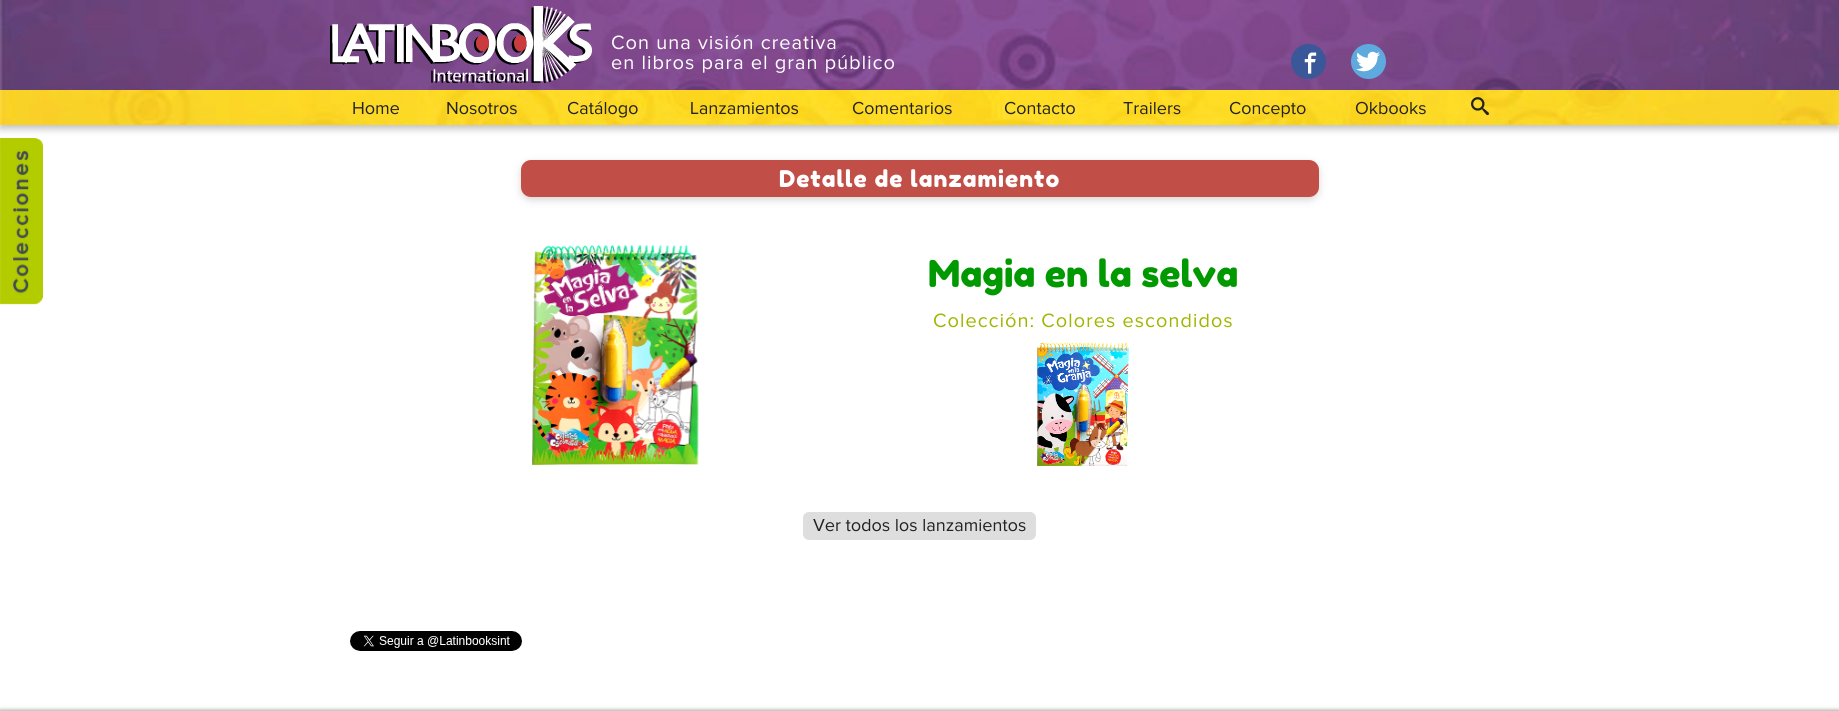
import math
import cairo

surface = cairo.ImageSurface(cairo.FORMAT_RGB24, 1839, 711)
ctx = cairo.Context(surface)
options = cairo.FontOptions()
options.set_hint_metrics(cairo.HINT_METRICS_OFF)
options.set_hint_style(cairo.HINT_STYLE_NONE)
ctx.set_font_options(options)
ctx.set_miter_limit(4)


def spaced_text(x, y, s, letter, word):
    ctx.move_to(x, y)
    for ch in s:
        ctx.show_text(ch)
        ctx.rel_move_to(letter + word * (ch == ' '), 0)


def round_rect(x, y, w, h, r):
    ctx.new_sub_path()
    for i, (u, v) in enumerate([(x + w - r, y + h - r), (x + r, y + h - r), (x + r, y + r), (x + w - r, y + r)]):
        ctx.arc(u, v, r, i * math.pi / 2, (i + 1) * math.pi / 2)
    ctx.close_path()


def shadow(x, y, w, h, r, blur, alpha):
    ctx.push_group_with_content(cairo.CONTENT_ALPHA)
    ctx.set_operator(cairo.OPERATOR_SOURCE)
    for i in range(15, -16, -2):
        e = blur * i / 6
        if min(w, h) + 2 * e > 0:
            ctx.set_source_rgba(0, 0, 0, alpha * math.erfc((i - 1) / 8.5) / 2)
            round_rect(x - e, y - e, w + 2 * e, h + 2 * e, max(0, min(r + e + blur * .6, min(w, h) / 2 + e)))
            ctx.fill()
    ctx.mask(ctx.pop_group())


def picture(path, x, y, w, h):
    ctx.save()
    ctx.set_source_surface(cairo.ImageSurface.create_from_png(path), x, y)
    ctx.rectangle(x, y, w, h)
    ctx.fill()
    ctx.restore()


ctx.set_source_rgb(1, 1, 1)
ctx.paint()
ctx.set_source_rgb(0.196, 0.196, 0.196)
shadow(0, 94, 1839, 35, 0, 3.5, 0.3)
picture("img1.png", 0, 0, 1839, 90)
picture("img2.png", 330, 6, 262, 77)
picture("img3.png", 612, 35, 224, 15)
picture("img4.png", 611, 55, 283, 18)
ctx.set_source_rgb(0.227, 0.341, 0.6)
ctx.arc(1308.5, 61.5, 17.5, 0, 2 * math.pi)
ctx.fill()
picture("img5.png", 1304, 52, 13, 22)
ctx.set_source_rgb(0.369, 0.663, 0.867)
ctx.arc(1368.5, 61.5, 17.5, 0, 2 * math.pi)
ctx.fill()
picture("img6.png", 1356, 51, 24, 21)
picture("img7.png", 0, 90, 1839, 35)
picture("img8.png", 353, 102, 46, 13)
picture("img9.png", 447, 102, 70, 13)
picture("img10.png", 567, 101, 71, 17)
picture("img11.png", 691, 102, 108, 13)
picture("img12.png", 852, 101, 100, 14)
picture("img13.png", 1004, 101, 71, 14)
picture("img14.png", 1123, 102, 58, 13)
picture("img15.png", 1229, 101, 77, 17)
picture("img16.png", 1355, 101, 71, 14)
picture("img17.png", 1471, 97, 18, 19)
picture("img18.png", 0, 138, 43, 167)
ctx.set_source_rgb(0.196, 0.196, 0.196)
shadow(521, 163, 798, 37, 10, 4, 0.2)
ctx.set_source_rgb(0.761, 0.306, 0.282)
round_rect(521, 160, 798, 37, 10)
ctx.fill()
ctx.select_font_face("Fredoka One")
ctx.set_font_size(23)
ctx.set_source_rgb(1, 1, 1)
spaced_text(779, 187, "Detalle de lanzamiento", 1, 0)
picture("img19.png", 532, 245, 167, 220)
ctx.set_font_size(37)
ctx.set_source_rgb(0, 0.6, 0)
ctx.move_to(928, 287)
ctx.show_text("Magia en la selva")
picture("img20.png", 934, 313, 298, 15)
picture("img21.png", 1037, 342, 92, 124)
ctx.set_source_rgb(0.871, 0.871, 0.871)
round_rect(803, 512, 233, 28, 6)
ctx.fill()
picture("img22.png", 813, 519, 213, 13)
picture("img23.png", 350, 631, 172, 20)
ctx.set_source_rgb(0.196, 0.196, 0.196)
shadow(0, 710, 1839, 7, 0, 2, 0.45)
surface.write_to_png("page.png")
